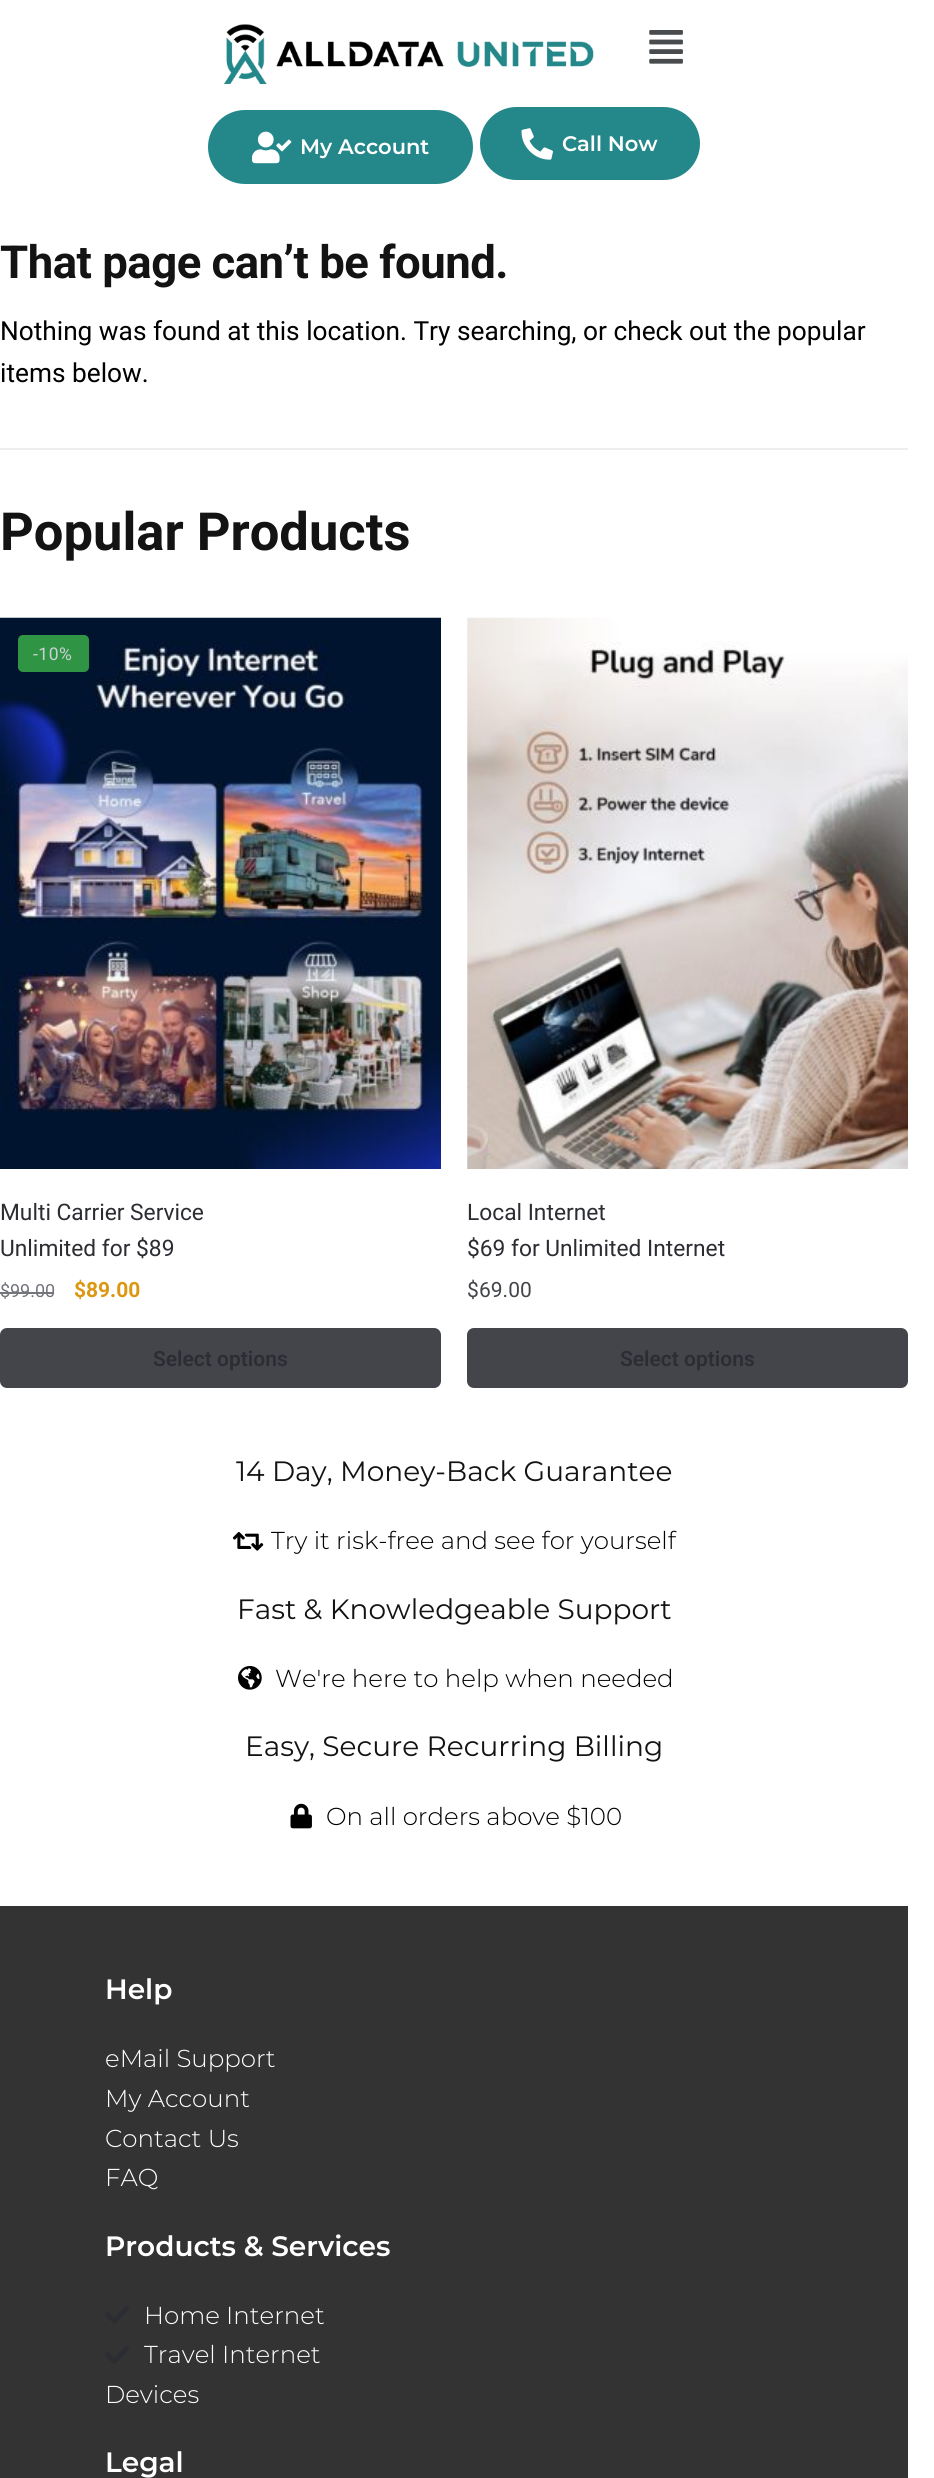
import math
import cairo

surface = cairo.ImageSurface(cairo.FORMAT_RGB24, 934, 2478)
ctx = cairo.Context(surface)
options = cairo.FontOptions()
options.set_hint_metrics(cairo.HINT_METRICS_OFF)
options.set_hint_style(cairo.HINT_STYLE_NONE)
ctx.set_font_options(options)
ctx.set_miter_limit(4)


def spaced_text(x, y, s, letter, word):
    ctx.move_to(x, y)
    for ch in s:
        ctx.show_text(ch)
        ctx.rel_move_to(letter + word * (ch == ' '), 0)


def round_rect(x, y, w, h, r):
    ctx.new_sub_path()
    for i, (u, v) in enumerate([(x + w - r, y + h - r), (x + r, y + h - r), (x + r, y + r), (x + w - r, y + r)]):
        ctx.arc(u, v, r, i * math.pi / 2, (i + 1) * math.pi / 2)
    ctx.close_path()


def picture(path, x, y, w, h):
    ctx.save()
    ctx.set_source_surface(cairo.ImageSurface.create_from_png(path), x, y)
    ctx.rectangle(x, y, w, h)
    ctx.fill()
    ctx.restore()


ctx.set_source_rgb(1, 1, 1)
ctx.paint()
picture("img1.png", 224, 24, 370, 60)
picture("img2.png", 649, 30, 34, 34)
ctx.set_source_rgb(0.141, 0.529, 0.537)
round_rect(208, 110, 265, 74, 37)
ctx.fill()
picture("img3.png", 252, 131, 40, 33)
ctx.select_font_face("Montserrat SemiBold")
ctx.set_font_size(21)
ctx.set_source_rgb(1, 1, 1)
ctx.move_to(300, 154)
ctx.show_text("My Account")
ctx.set_source_rgb(0.141, 0.529, 0.537)
round_rect(480, 107, 220, 73, 36.5)
ctx.fill()
picture("img4.png", 521, 128, 32, 32)
ctx.set_source_rgb(1, 1, 1)
ctx.move_to(562, 151)
ctx.show_text("Call Now")
ctx.select_font_face("Roboto", cairo.FONT_SLANT_NORMAL, cairo.FONT_WEIGHT_BOLD)
ctx.set_font_size(45.5)
ctx.set_source_rgb(0.075, 0.075, 0.082)
spaced_text(0, 278, "That page can’t be found.", -0.5, 0)
ctx.select_font_face("Roboto")
ctx.set_font_size(26.25)
ctx.set_source_rgb(0, 0, 0)
ctx.move_to(0, 340)
ctx.show_text("Nothing was found at this location. Try searching, or check out the popular")
ctx.move_to(0, 382)
ctx.show_text("items below.")
ctx.set_source_rgb(0.933, 0.933, 0.933)
ctx.rectangle(0, 448, 908, 2)
ctx.fill()
ctx.select_font_face("Roboto", cairo.FONT_SLANT_NORMAL, cairo.FONT_WEIGHT_BOLD)
ctx.set_font_size(52.5)
ctx.set_source_rgb(0.075, 0.075, 0.082)
ctx.move_to(0, 550)
ctx.show_text("Popular Products")
picture("img5.png", 0, 617, 441, 552)
ctx.set_source_rgb(0.184, 0.584, 0.271)
round_rect(18, 635, 71, 37, 5)
ctx.fill()
ctx.select_font_face("Roboto")
ctx.set_font_size(17.5)
ctx.set_source_rgb(0.8, 0.816, 0.835)
spaced_text(33, 660, "-10%", 0.5, 0)
ctx.set_font_size(22.75)
ctx.set_source_rgb(0.173, 0.176, 0.2)
ctx.move_to(0, 1220)
ctx.show_text("Multi Carrier Service")
ctx.move_to(0, 1256)
ctx.show_text("Unlimited for $89")
ctx.set_font_size(18)
ctx.set_source_rgb(0.447, 0.463, 0.486)
ctx.move_to(0, 1297)
ctx.show_text("$")
ctx.move_to(10, 1297)
ctx.show_text("99.00")
ctx.rectangle(11, 1292, 43, 2)
ctx.fill()
ctx.rectangle(0, 1292, 11, 2)
ctx.fill()
ctx.select_font_face("Roboto", cairo.FONT_SLANT_NORMAL, cairo.FONT_WEIGHT_BOLD)
ctx.set_font_size(21)
ctx.set_source_rgb(0.863, 0.596, 0.078)
ctx.move_to(74, 1297)
ctx.show_text("$")
ctx.move_to(86, 1297)
ctx.show_text("89.00")
ctx.set_source_rgb(0.263, 0.271, 0.294)
round_rect(0, 1328, 441, 60, 7)
ctx.fill()
ctx.select_font_face("Roboto SemiBold")
ctx.set_source_rgb(0.173, 0.176, 0.2)
ctx.move_to(153, 1366)
ctx.show_text("Select options")
picture("img6.png", 467, 617, 441, 552)
ctx.select_font_face("Roboto")
ctx.set_font_size(22.75)
ctx.move_to(467, 1220)
ctx.show_text("Local Internet")
ctx.move_to(467, 1256)
ctx.show_text("$69 for Unlimited Internet")
ctx.set_font_size(21)
ctx.set_source_rgb(0.263, 0.271, 0.294)
ctx.move_to(467, 1297)
ctx.show_text("$")
ctx.move_to(479, 1297)
ctx.show_text("69.00")
round_rect(467, 1328, 441, 60, 7)
ctx.fill()
ctx.select_font_face("Roboto SemiBold")
ctx.set_source_rgb(0.173, 0.176, 0.2)
ctx.move_to(620, 1366)
ctx.show_text("Select options")
ctx.select_font_face("Montserrat")
ctx.set_font_size(28)
ctx.set_source_rgb(0.075, 0.075, 0.082)
ctx.move_to(236, 1481)
ctx.show_text("14 Day, Money-Back Guarantee")
picture("img7.png", 232, 1532, 32, 19)
ctx.select_font_face("Montserrat Light")
ctx.set_font_size(24.5)
ctx.set_source_rgb(0, 0, 0)
ctx.move_to(271, 1549)
ctx.show_text("Try it risk-free and see for yourself")
ctx.select_font_face("Montserrat")
ctx.set_font_size(28)
ctx.set_source_rgb(0.075, 0.075, 0.082)
ctx.move_to(237, 1619)
ctx.show_text("Fast & Knowledgeable Support")
picture("img8.png", 238, 1665, 24, 25)
ctx.select_font_face("Montserrat Light")
ctx.set_font_size(24.5)
ctx.set_source_rgb(0, 0, 0)
ctx.move_to(275, 1687)
ctx.show_text("We're here to help when needed")
ctx.select_font_face("Montserrat")
ctx.set_font_size(28)
ctx.set_source_rgb(0.075, 0.075, 0.082)
ctx.move_to(245, 1756)
ctx.show_text("Easy, Secure Recurring Billing")
picture("img9.png", 290, 1803, 22, 26)
ctx.select_font_face("Montserrat Light")
ctx.set_font_size(24.5)
ctx.set_source_rgb(0, 0, 0)
ctx.move_to(326, 1825)
ctx.show_text("On all orders above $100")
ctx.set_source_rgb(0.2, 0.2, 0.2)
ctx.rectangle(0, 1906, 908, 572)
ctx.fill()
ctx.select_font_face("Montserrat SemiBold")
ctx.set_font_size(28)
ctx.set_source_rgb(1, 1, 1)
ctx.move_to(105, 1999)
ctx.show_text("Help")
ctx.select_font_face("Montserrat Light")
ctx.set_font_size(24.5)
ctx.move_to(105, 2067)
ctx.show_text("eMail Support")
ctx.move_to(105, 2107)
ctx.show_text("My Account")
ctx.move_to(105, 2147)
ctx.show_text("Contact Us")
ctx.move_to(105, 2186)
ctx.show_text("FAQ")
ctx.select_font_face("Montserrat SemiBold")
ctx.set_font_size(28)
ctx.move_to(105, 2256)
ctx.show_text("Products & Services")
picture("img10.png", 105, 2306, 24, 18)
ctx.select_font_face("Montserrat Light")
ctx.set_font_size(24.5)
ctx.move_to(144, 2324)
ctx.show_text("Home Internet")
picture("img11.png", 105, 2346, 24, 18)
ctx.move_to(144, 2363)
ctx.show_text("Travel Internet")
ctx.move_to(105, 2403)
ctx.show_text("Devices")
ctx.select_font_face("Montserrat SemiBold")
ctx.set_font_size(28)
ctx.move_to(105, 2472)
ctx.show_text("Legal")
surface.write_to_png("page.png")
